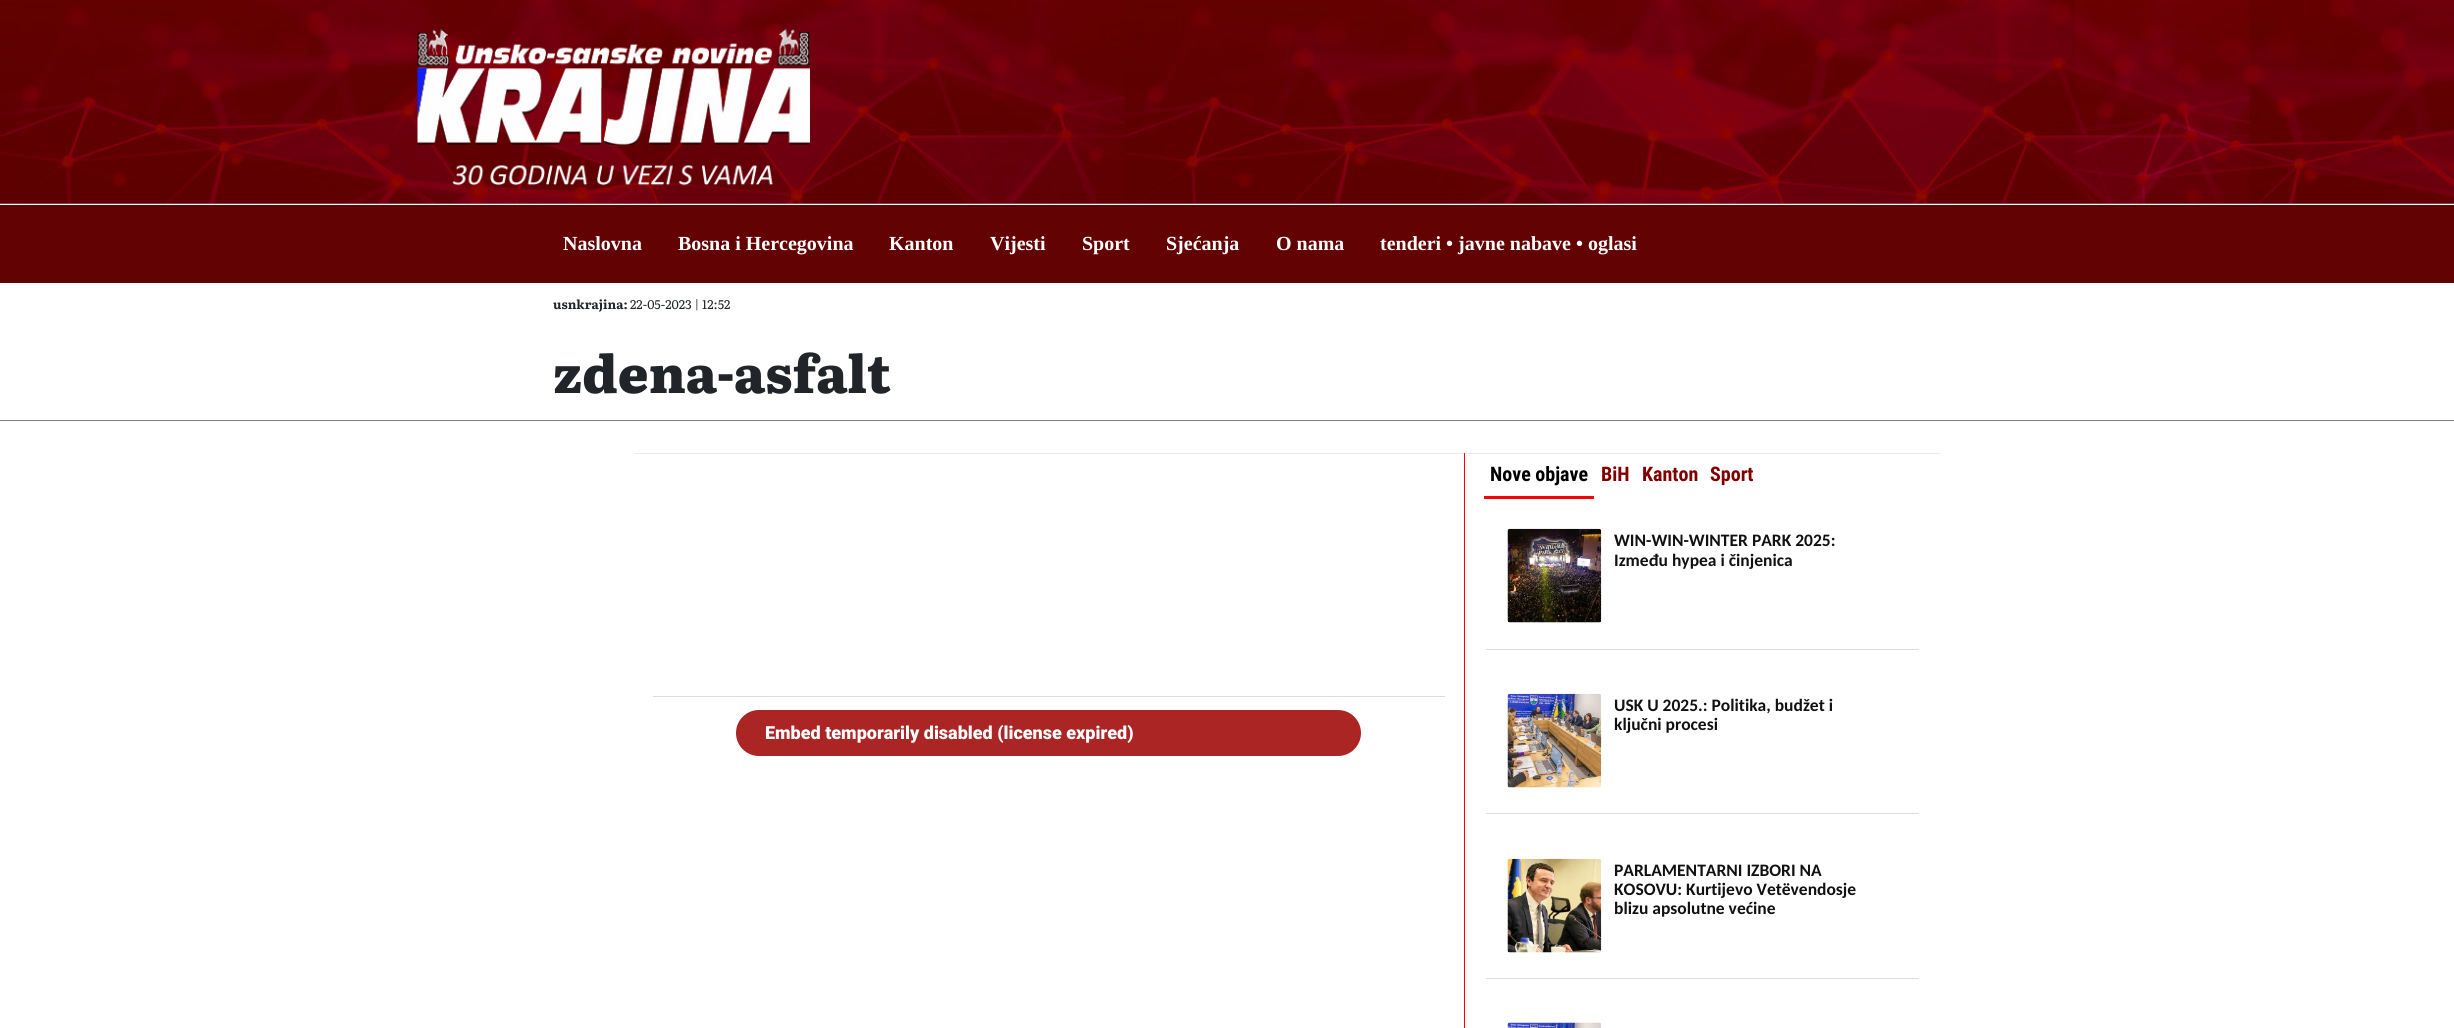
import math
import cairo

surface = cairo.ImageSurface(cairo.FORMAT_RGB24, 2454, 1028)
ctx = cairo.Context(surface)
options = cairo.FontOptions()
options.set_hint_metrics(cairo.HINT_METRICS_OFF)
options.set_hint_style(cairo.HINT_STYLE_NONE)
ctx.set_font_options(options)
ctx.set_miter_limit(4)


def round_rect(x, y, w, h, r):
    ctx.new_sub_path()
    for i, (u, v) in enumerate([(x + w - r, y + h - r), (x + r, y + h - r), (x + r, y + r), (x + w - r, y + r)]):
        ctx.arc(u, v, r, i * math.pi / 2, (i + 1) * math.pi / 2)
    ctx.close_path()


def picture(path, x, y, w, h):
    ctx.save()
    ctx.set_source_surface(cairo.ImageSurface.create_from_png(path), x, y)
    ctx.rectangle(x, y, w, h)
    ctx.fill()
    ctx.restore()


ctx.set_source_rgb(1, 1, 1)
ctx.paint()
picture("img1.png", 0, 0, 2454, 204)
picture("img2.png", 417, 28, 393, 158)
ctx.set_source_rgb(0.388, 0.008, 0.008)
ctx.rectangle(0, 205, 2454, 78)
ctx.fill()
ctx.set_source_rgb(0.361, 0, 0)
ctx.rectangle(0, 281, 2454, 1)
ctx.fill()
ctx.select_font_face("Liberation Serif", cairo.FONT_SLANT_NORMAL, cairo.FONT_WEIGHT_BOLD)
ctx.set_font_size(20)
ctx.set_source_rgb(1, 1, 1)
ctx.move_to(563, 250)
ctx.show_text("Naslovna")
ctx.move_to(678, 250)
ctx.show_text("Bosna i Hercegovina")
ctx.move_to(889, 250)
ctx.show_text("Kanton")
ctx.move_to(990, 250)
ctx.show_text("Vijesti")
ctx.move_to(1082, 250)
ctx.show_text("Sport")
ctx.move_to(1166, 250)
ctx.show_text("Sjećanja")
ctx.move_to(1276, 250)
ctx.show_text("O nama")
ctx.move_to(1380, 250)
ctx.show_text("tenderi • javne nabave • oglasi")
ctx.set_source_rgb(0.502, 0.502, 0.502)
ctx.rectangle(0, 420, 2454, 1)
ctx.fill()
ctx.select_font_face("Literata", cairo.FONT_SLANT_NORMAL, cairo.FONT_WEIGHT_BOLD)
ctx.set_font_size(12.5)
ctx.set_source_rgb(0.129, 0.145, 0.161)
ctx.move_to(553, 309)
ctx.show_text("usnkrajina:")
ctx.select_font_face("Literata")
ctx.move_to(630, 309)
ctx.show_text("22-05-2023 | 12:52")
ctx.select_font_face("Literata ExtraBold")
ctx.set_font_size(52)
ctx.move_to(553, 393)
ctx.show_text("zdena-asfalt")
ctx.set_source_rgb(0.925, 0.918, 0.918)
ctx.rectangle(634, 453, 1306, 1)
ctx.fill()
ctx.set_source_rgb(1, 0, 0)
ctx.rectangle(1464, 453, 1, 575)
ctx.fill()
ctx.set_source_rgb(0.867, 0.867, 0.867)
ctx.rectangle(653, 696, 792, 1)
ctx.fill()
ctx.set_source_rgb(0.671, 0.145, 0.145)
round_rect(736, 710, 625, 46, 23)
ctx.fill()
ctx.select_font_face("Roboto Black")
ctx.set_font_size(18)
ctx.set_source_rgb(1, 1, 1)
ctx.move_to(765, 739)
ctx.show_text("Embed temporarily disabled (license expired)")
ctx.set_source_rgb(1, 0, 0)
ctx.rectangle(1484, 496, 110, 3)
ctx.fill()
ctx.select_font_face("Roboto Condensed", cairo.FONT_SLANT_NORMAL, cairo.FONT_WEIGHT_BOLD)
ctx.set_font_size(20)
ctx.set_source_rgb(0, 0, 0)
ctx.move_to(1490, 481)
ctx.show_text("Nove objave")
ctx.set_source_rgb(0.502, 0, 0)
ctx.move_to(1601, 481)
ctx.show_text("BiH")
ctx.move_to(1642, 481)
ctx.show_text("Kanton")
ctx.move_to(1710, 481)
ctx.show_text("Sport")
ctx.set_source_rgb(0.867, 0.867, 0.867)
ctx.rectangle(1486, 649, 433, 1)
ctx.fill()
picture("img3.png", 1507, 528, 95, 95)
ctx.select_font_face("Carlito", cairo.FONT_SLANT_NORMAL, cairo.FONT_WEIGHT_BOLD)
ctx.set_font_size(17.5)
ctx.set_source_rgb(0.067, 0.067, 0.067)
ctx.move_to(1614, 546)
ctx.show_text("WIN-WIN-WINTER PARK 2025:")
ctx.move_to(1614, 566)
ctx.show_text("Između hypea i činjenica")
ctx.set_source_rgb(0.867, 0.867, 0.867)
ctx.rectangle(1486, 813, 433, 1)
ctx.fill()
picture("img4.png", 1507, 693, 95, 95)
ctx.set_source_rgb(0.067, 0.067, 0.067)
ctx.move_to(1614, 711)
ctx.show_text("USK U 2025.: Politika, budžet i")
ctx.move_to(1614, 730)
ctx.show_text("ključni procesi")
ctx.set_source_rgb(0.867, 0.867, 0.867)
ctx.rectangle(1486, 978, 433, 1)
ctx.fill()
picture("img5.png", 1507, 858, 95, 95)
ctx.set_source_rgb(0.067, 0.067, 0.067)
ctx.move_to(1614, 876)
ctx.show_text("PARLAMENTARNI IZBORI NA")
ctx.move_to(1614, 895)
ctx.show_text("KOSOVU: Kurtijevo Vetëvendosje")
ctx.move_to(1614, 914)
ctx.show_text("blizu apsolutne većine")
picture("img6.png", 1507, 1022, 94, 6)
surface.write_to_png("page.png")
